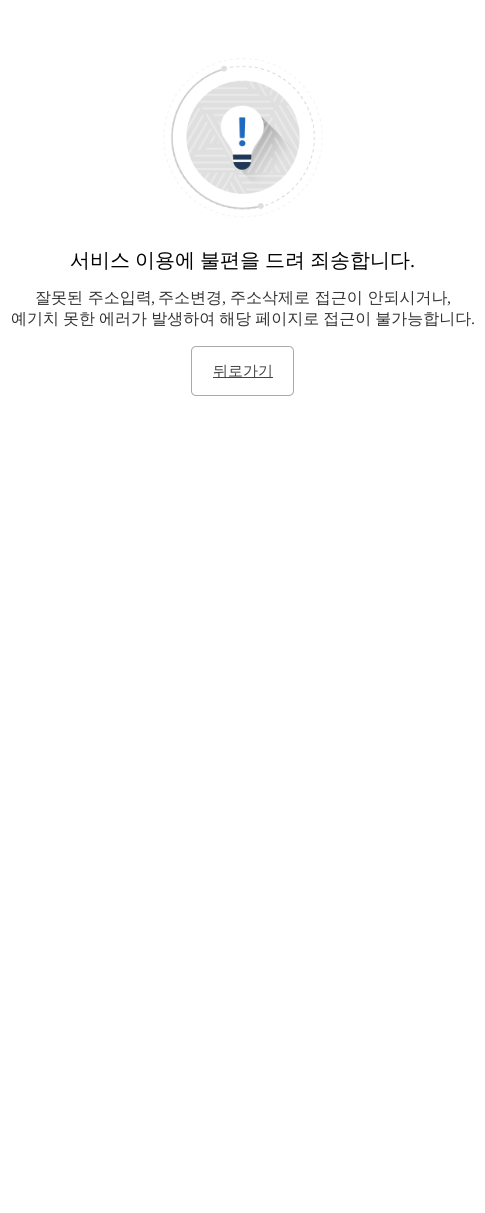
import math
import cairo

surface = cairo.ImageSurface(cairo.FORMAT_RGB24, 485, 1213)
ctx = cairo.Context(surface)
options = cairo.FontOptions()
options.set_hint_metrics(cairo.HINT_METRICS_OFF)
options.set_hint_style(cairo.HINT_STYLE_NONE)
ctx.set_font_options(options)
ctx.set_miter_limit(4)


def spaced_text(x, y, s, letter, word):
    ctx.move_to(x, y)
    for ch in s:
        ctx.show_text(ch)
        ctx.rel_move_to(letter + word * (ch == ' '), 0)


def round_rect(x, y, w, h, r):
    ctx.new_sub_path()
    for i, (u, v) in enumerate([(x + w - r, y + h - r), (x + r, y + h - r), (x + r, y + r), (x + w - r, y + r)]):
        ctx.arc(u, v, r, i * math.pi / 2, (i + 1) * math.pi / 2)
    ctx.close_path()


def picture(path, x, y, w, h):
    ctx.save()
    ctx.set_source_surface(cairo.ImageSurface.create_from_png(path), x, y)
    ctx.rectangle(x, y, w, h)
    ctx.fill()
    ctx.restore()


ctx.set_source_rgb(1, 1, 1)
ctx.paint()
picture("img1.png", 163, 58, 160, 160)
ctx.select_font_face("WenQuanYi Zen Hei Medium")
ctx.set_font_size(20)
ctx.set_source_rgb(0, 0, 0)
spaced_text(70, 267, "서비스 이용에 불편을 드려 죄송합니다", 0, -1)
ctx.select_font_face("Liberation Serif")
ctx.move_to(410, 267)
ctx.show_text(".")
ctx.select_font_face("WenQuanYi Zen Hei Medium")
ctx.set_font_size(16)
ctx.set_source_rgb(0.2, 0.2, 0.2)
ctx.move_to(35, 303)
ctx.show_text("잘못된 주소입력")
ctx.select_font_face("Liberation Serif")
ctx.move_to(151, 303)
ctx.show_text(",")
ctx.select_font_face("WenQuanYi Zen Hei Medium")
ctx.move_to(158, 303)
ctx.show_text("주소변경")
ctx.select_font_face("Liberation Serif")
ctx.move_to(222, 303)
ctx.show_text(",")
ctx.select_font_face("WenQuanYi Zen Hei Medium")
ctx.move_to(230, 303)
ctx.show_text("주소삭제로 접근이 안되시거나")
ctx.select_font_face("Liberation Serif")
ctx.move_to(447, 303)
ctx.show_text(",")
ctx.select_font_face("WenQuanYi Zen Hei Medium")
spaced_text(11, 324, "예기치 못한 에러가 발생하여 해당 페이지로 접근이 불가능합니다", 0, -0.75)
ctx.select_font_face("Liberation Serif")
ctx.move_to(471, 324)
ctx.show_text(".")
round_rect(191.5, 346.5, 102, 49, 4.5)
ctx.set_source_rgb(0.667, 0.667, 0.667)
ctx.set_line_width(1)
ctx.stroke()
ctx.set_source_rgb(0.267, 0.267, 0.267)
ctx.rectangle(213, 377, 60, 1)
ctx.fill()
ctx.select_font_face("WenQuanYi Zen Hei Medium")
ctx.set_font_size(15)
ctx.move_to(213, 376)
ctx.show_text("뒤로가기")
surface.write_to_png("page.png")
